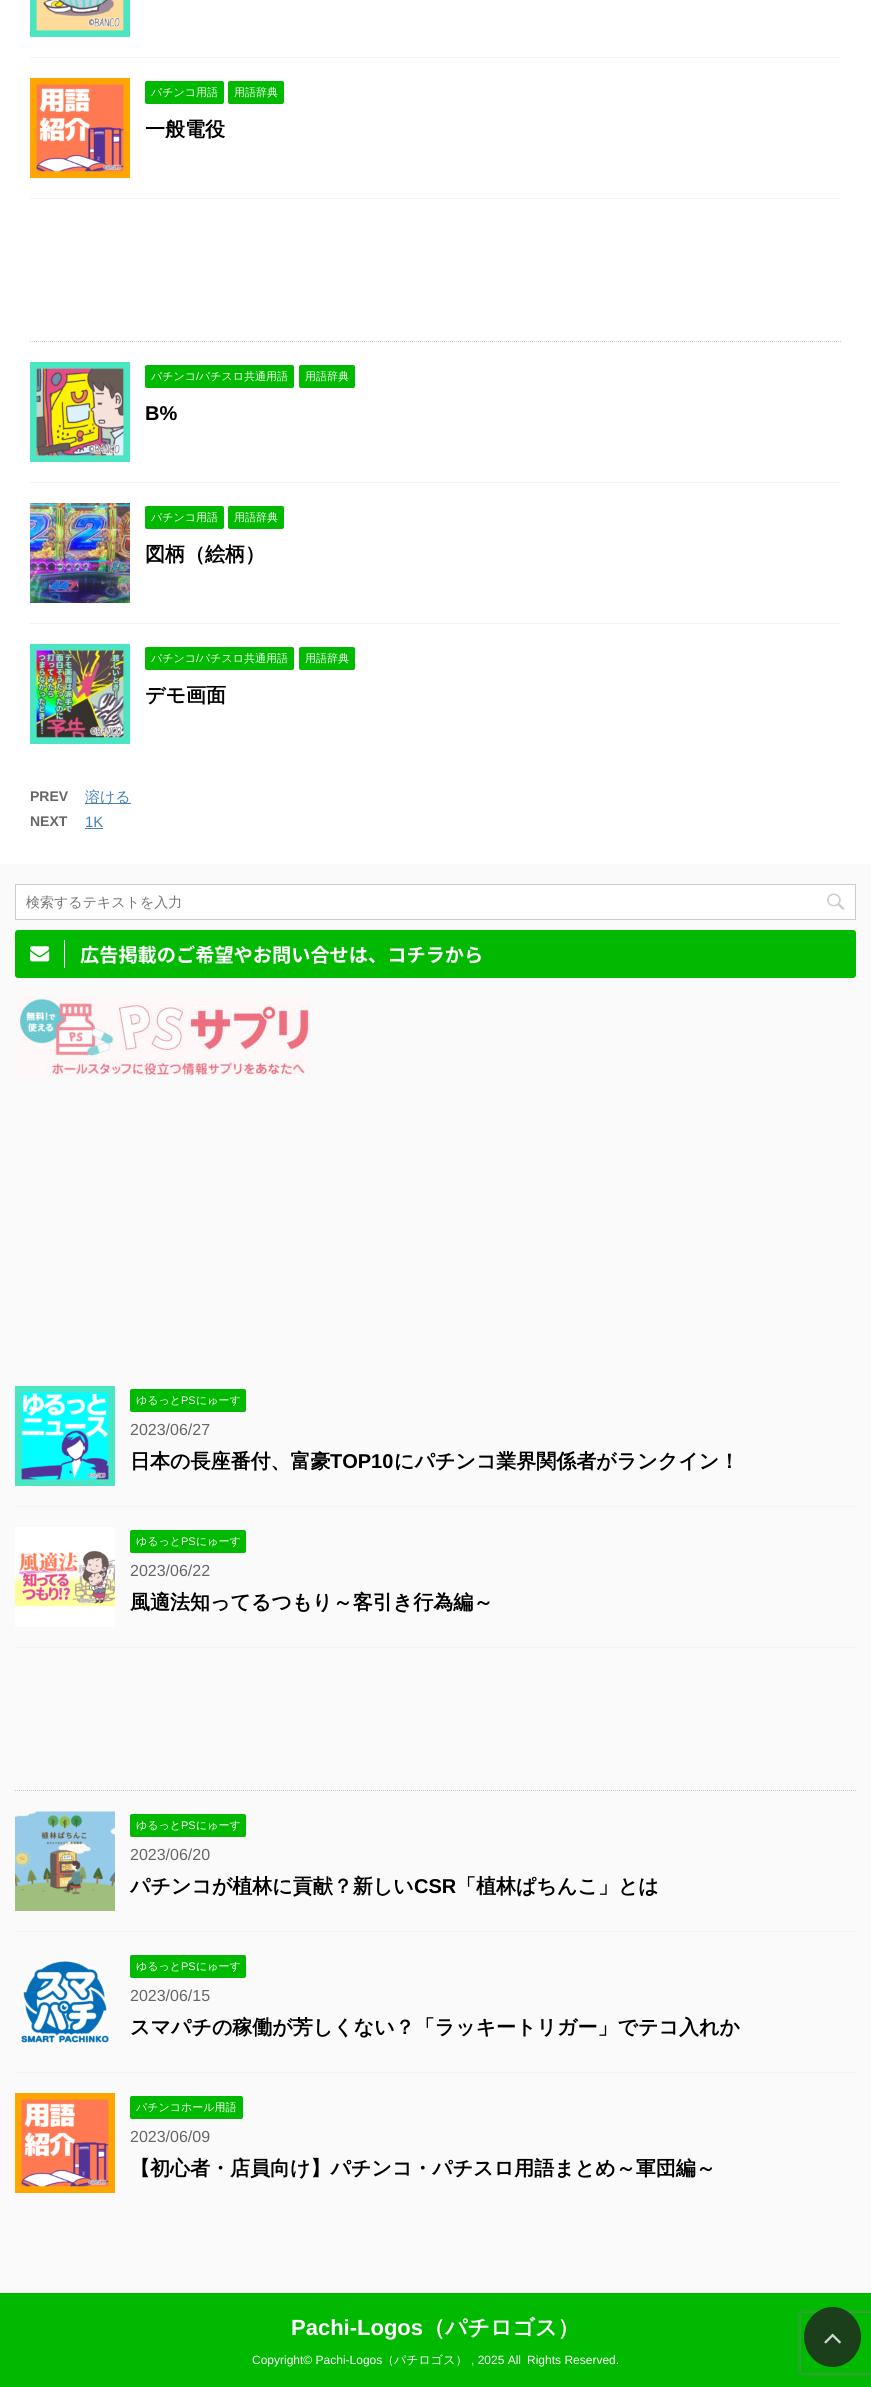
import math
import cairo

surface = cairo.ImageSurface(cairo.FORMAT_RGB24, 871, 2387)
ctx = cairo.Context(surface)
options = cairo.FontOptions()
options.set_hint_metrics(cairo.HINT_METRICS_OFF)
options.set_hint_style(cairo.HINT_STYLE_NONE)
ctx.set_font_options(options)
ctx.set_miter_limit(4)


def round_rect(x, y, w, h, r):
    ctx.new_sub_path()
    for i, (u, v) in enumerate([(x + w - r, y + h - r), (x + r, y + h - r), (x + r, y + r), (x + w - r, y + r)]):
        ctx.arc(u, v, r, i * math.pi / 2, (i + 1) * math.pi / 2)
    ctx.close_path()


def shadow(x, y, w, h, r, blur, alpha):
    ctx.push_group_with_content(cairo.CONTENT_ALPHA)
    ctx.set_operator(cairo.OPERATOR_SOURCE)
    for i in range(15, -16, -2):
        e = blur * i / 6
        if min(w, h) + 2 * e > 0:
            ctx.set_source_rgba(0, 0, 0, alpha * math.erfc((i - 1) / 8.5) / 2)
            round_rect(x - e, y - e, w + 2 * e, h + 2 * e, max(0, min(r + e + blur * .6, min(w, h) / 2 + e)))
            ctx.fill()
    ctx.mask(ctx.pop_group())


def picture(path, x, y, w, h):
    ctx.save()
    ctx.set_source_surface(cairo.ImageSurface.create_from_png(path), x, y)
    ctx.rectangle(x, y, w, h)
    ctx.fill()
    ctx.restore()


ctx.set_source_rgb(0.98, 0.98, 0.98)
ctx.paint()
ctx.set_source_rgb(1, 1, 1)
ctx.rectangle(0, 0, 871, 864)
ctx.fill()
ctx.set_source_rgb(0.953, 0.953, 0.953)
ctx.rectangle(30, 57, 811, 1)
ctx.fill()
picture("img1.png", 30, 0, 100, 37)
ctx.rectangle(30, 198, 811, 1)
ctx.fill()
picture("img2.png", 30, 78, 100, 100)
ctx.set_source_rgb(0, 0.725, 0)
round_rect(145, 81, 79, 23, 2)
ctx.fill()
ctx.select_font_face("WenQuanYi Zen Hei Medium")
ctx.set_font_size(11)
ctx.set_source_rgb(1, 1, 1)
ctx.move_to(151, 96)
ctx.show_text("パチンコ用語")
ctx.set_source_rgb(0, 0.725, 0)
round_rect(228, 81, 56, 23, 2)
ctx.fill()
ctx.set_source_rgb(1, 1, 1)
ctx.move_to(234, 96)
ctx.show_text("用語辞典")
ctx.select_font_face("WenQuanYi Zen Hei", cairo.FONT_SLANT_NORMAL, cairo.FONT_WEIGHT_BOLD)
ctx.set_font_size(20)
ctx.set_source_rgb(0, 0, 0)
ctx.move_to(145, 136)
ctx.show_text("一般電役")
ctx.new_path()
ctx.move_to(30, 341.5)
ctx.line_to(841, 341.5)
ctx.set_source_rgb(0.8, 0.8, 0.8)
ctx.set_line_width(1)
ctx.set_dash([1, 1])
ctx.stroke()
ctx.set_source_rgb(0.953, 0.953, 0.953)
ctx.rectangle(30, 482, 811, 1)
ctx.fill()
picture("img3.png", 30, 362, 100, 100)
ctx.set_source_rgb(0, 0.725, 0)
round_rect(145, 365, 149, 23, 2)
ctx.fill()
ctx.select_font_face("WenQuanYi Zen Hei Medium")
ctx.set_font_size(11)
ctx.set_source_rgb(1, 1, 1)
ctx.move_to(151, 380)
ctx.show_text("パチンコ")
ctx.select_font_face("Liberation Sans")
ctx.move_to(196, 380)
ctx.show_text("/")
ctx.select_font_face("WenQuanYi Zen Hei Medium")
ctx.move_to(199, 380)
ctx.show_text("パチスロ共通用語")
ctx.set_source_rgb(0, 0.725, 0)
round_rect(299, 365, 56, 23, 2)
ctx.fill()
ctx.set_source_rgb(1, 1, 1)
ctx.move_to(305, 380)
ctx.show_text("用語辞典")
ctx.select_font_face("Liberation Sans", cairo.FONT_SLANT_NORMAL, cairo.FONT_WEIGHT_BOLD)
ctx.set_font_size(20)
ctx.set_source_rgb(0, 0, 0)
ctx.move_to(145, 420)
ctx.show_text("B%")
ctx.set_source_rgb(0.953, 0.953, 0.953)
ctx.rectangle(30, 623, 811, 1)
ctx.fill()
picture("img4.png", 30, 503, 100, 100)
ctx.set_source_rgb(0, 0.725, 0)
round_rect(145, 506, 79, 23, 2)
ctx.fill()
ctx.select_font_face("WenQuanYi Zen Hei Medium")
ctx.set_font_size(11)
ctx.set_source_rgb(1, 1, 1)
ctx.move_to(151, 521)
ctx.show_text("パチンコ用語")
ctx.set_source_rgb(0, 0.725, 0)
round_rect(228, 506, 56, 23, 2)
ctx.fill()
ctx.set_source_rgb(1, 1, 1)
ctx.move_to(234, 521)
ctx.show_text("用語辞典")
ctx.select_font_face("WenQuanYi Zen Hei", cairo.FONT_SLANT_NORMAL, cairo.FONT_WEIGHT_BOLD)
ctx.set_font_size(20)
ctx.set_source_rgb(0, 0, 0)
ctx.move_to(145, 561)
ctx.show_text("図柄（絵柄）")
picture("img5.png", 30, 644, 100, 100)
ctx.set_source_rgb(0, 0.725, 0)
round_rect(145, 647, 149, 23, 2)
ctx.fill()
ctx.select_font_face("WenQuanYi Zen Hei Medium")
ctx.set_font_size(11)
ctx.set_source_rgb(1, 1, 1)
ctx.move_to(151, 662)
ctx.show_text("パチンコ")
ctx.select_font_face("Liberation Sans")
ctx.move_to(196, 662)
ctx.show_text("/")
ctx.select_font_face("WenQuanYi Zen Hei Medium")
ctx.move_to(199, 662)
ctx.show_text("パチスロ共通用語")
ctx.set_source_rgb(0, 0.725, 0)
round_rect(299, 647, 56, 23, 2)
ctx.fill()
ctx.set_source_rgb(1, 1, 1)
ctx.move_to(305, 662)
ctx.show_text("用語辞典")
ctx.select_font_face("WenQuanYi Zen Hei", cairo.FONT_SLANT_NORMAL, cairo.FONT_WEIGHT_BOLD)
ctx.set_font_size(20)
ctx.set_source_rgb(0, 0, 0)
ctx.move_to(145, 702)
ctx.show_text("デモ画面")
ctx.select_font_face("Liberation Sans", cairo.FONT_SLANT_NORMAL, cairo.FONT_WEIGHT_BOLD)
ctx.set_font_size(14)
ctx.set_source_rgb(0.4, 0.4, 0.4)
ctx.move_to(30, 801)
ctx.show_text("PREV")
ctx.set_source_rgb(0.275, 0.51, 0.706)
ctx.rectangle(85, 803, 46, 1)
ctx.fill()
ctx.select_font_face("WenQuanYi Zen Hei Medium")
ctx.set_font_size(15)
ctx.move_to(85, 802)
ctx.show_text("溶ける")
ctx.select_font_face("Liberation Sans", cairo.FONT_SLANT_NORMAL, cairo.FONT_WEIGHT_BOLD)
ctx.set_font_size(14)
ctx.set_source_rgb(0.4, 0.4, 0.4)
ctx.move_to(30, 826)
ctx.show_text("NEXT")
ctx.select_font_face("Liberation Sans")
ctx.set_font_size(15)
ctx.set_source_rgb(0.275, 0.51, 0.706)
ctx.move_to(85, 827)
ctx.show_text("1K")
ctx.rectangle(85, 828, 18, 1)
ctx.fill()
ctx.rectangle(15.5, 884.5, 840, 35)
ctx.set_source_rgb(0.8, 0.8, 0.8)
ctx.set_dash([])
ctx.stroke()
ctx.set_source_rgb(1, 1, 1)
ctx.rectangle(16, 885, 839, 34)
ctx.fill()
ctx.select_font_face("WenQuanYi Zen Hei Medium")
ctx.set_font_size(14)
ctx.set_source_rgb(0.459, 0.459, 0.459)
ctx.move_to(26, 907)
ctx.show_text("検索するテキストを入力")
picture("img6.png", 827, 893, 18, 17)
ctx.set_source_rgb(0, 0.725, 0)
round_rect(15, 930, 841, 48, 3)
ctx.fill()
picture("img7.png", 30, 946, 20, 16)
ctx.set_source_rgb(1, 1, 1)
ctx.rectangle(64, 940, 1, 28)
ctx.fill()
ctx.select_font_face("Noto Sans JP", cairo.FONT_SLANT_NORMAL, cairo.FONT_WEIGHT_BOLD)
ctx.set_font_size(19.2)
ctx.move_to(80, 962)
ctx.show_text("広告掲載のご希望やお問い合せは、コチラから")
picture("img8.png", 15, 996, 296, 80)
ctx.set_source_rgb(0.953, 0.953, 0.953)
ctx.rectangle(15, 1506, 841, 1)
ctx.fill()
picture("img9.png", 15, 1386, 100, 100)
ctx.set_source_rgb(0, 0.725, 0)
round_rect(130, 1389, 116, 23, 2)
ctx.fill()
ctx.select_font_face("WenQuanYi Zen Hei Medium")
ctx.set_font_size(11)
ctx.set_source_rgb(1, 1, 1)
ctx.move_to(136, 1404)
ctx.show_text("ゆるっと")
ctx.select_font_face("Liberation Sans")
ctx.move_to(181, 1404)
ctx.show_text("PS")
ctx.select_font_face("WenQuanYi Zen Hei Medium")
ctx.move_to(196, 1404)
ctx.show_text("にゅーす")
ctx.select_font_face("Liberation Sans")
ctx.set_font_size(16)
ctx.set_source_rgb(0.4, 0.4, 0.4)
ctx.move_to(130, 1435)
ctx.show_text("2023/06/27")
ctx.select_font_face("WenQuanYi Zen Hei", cairo.FONT_SLANT_NORMAL, cairo.FONT_WEIGHT_BOLD)
ctx.set_font_size(20)
ctx.set_source_rgb(0, 0, 0)
ctx.move_to(130, 1468)
ctx.show_text("日本の長座番付、富豪")
ctx.select_font_face("Liberation Sans", cairo.FONT_SLANT_NORMAL, cairo.FONT_WEIGHT_BOLD)
ctx.move_to(330, 1468)
ctx.show_text("TOP10")
ctx.select_font_face("WenQuanYi Zen Hei", cairo.FONT_SLANT_NORMAL, cairo.FONT_WEIGHT_BOLD)
ctx.move_to(394, 1468)
ctx.show_text("にパチンコ業界関係者がランクイン！")
ctx.set_source_rgb(0.953, 0.953, 0.953)
ctx.rectangle(15, 1647, 841, 1)
ctx.fill()
picture("img10.png", 15, 1527, 100, 100)
ctx.set_source_rgb(0, 0.725, 0)
round_rect(130, 1530, 116, 23, 2)
ctx.fill()
ctx.select_font_face("WenQuanYi Zen Hei Medium")
ctx.set_font_size(11)
ctx.set_source_rgb(1, 1, 1)
ctx.move_to(136, 1545)
ctx.show_text("ゆるっと")
ctx.select_font_face("Liberation Sans")
ctx.move_to(181, 1545)
ctx.show_text("PS")
ctx.select_font_face("WenQuanYi Zen Hei Medium")
ctx.move_to(196, 1545)
ctx.show_text("にゅーす")
ctx.select_font_face("Liberation Sans")
ctx.set_font_size(16)
ctx.set_source_rgb(0.4, 0.4, 0.4)
ctx.move_to(130, 1576)
ctx.show_text("2023/06/22")
ctx.select_font_face("WenQuanYi Zen Hei", cairo.FONT_SLANT_NORMAL, cairo.FONT_WEIGHT_BOLD)
ctx.set_font_size(20)
ctx.set_source_rgb(0, 0, 0)
ctx.move_to(130, 1609)
ctx.show_text("風適法知ってるつもり～客引き行為編～")
ctx.new_path()
ctx.move_to(15, 1790.5)
ctx.line_to(856, 1790.5)
ctx.set_source_rgb(0.8, 0.8, 0.8)
ctx.set_dash([1, 1])
ctx.stroke()
ctx.set_source_rgb(0.953, 0.953, 0.953)
ctx.rectangle(15, 1931, 841, 1)
ctx.fill()
picture("img11.png", 15, 1811, 100, 100)
ctx.set_source_rgb(0, 0.725, 0)
round_rect(130, 1814, 116, 23, 2)
ctx.fill()
ctx.select_font_face("WenQuanYi Zen Hei Medium")
ctx.set_font_size(11)
ctx.set_source_rgb(1, 1, 1)
ctx.move_to(136, 1829)
ctx.show_text("ゆるっと")
ctx.select_font_face("Liberation Sans")
ctx.move_to(181, 1829)
ctx.show_text("PS")
ctx.select_font_face("WenQuanYi Zen Hei Medium")
ctx.move_to(196, 1829)
ctx.show_text("にゅーす")
ctx.select_font_face("Liberation Sans")
ctx.set_font_size(16)
ctx.set_source_rgb(0.4, 0.4, 0.4)
ctx.move_to(130, 1860)
ctx.show_text("2023/06/20")
ctx.select_font_face("WenQuanYi Zen Hei", cairo.FONT_SLANT_NORMAL, cairo.FONT_WEIGHT_BOLD)
ctx.set_font_size(20)
ctx.set_source_rgb(0, 0, 0)
ctx.move_to(130, 1893)
ctx.show_text("パチンコが植林に貢献？新しい")
ctx.select_font_face("Liberation Sans", cairo.FONT_SLANT_NORMAL, cairo.FONT_WEIGHT_BOLD)
ctx.move_to(414, 1893)
ctx.show_text("CSR")
ctx.select_font_face("WenQuanYi Zen Hei", cairo.FONT_SLANT_NORMAL, cairo.FONT_WEIGHT_BOLD)
ctx.move_to(456, 1893)
ctx.show_text("「植林ぱちんこ」とは")
ctx.set_source_rgb(0.953, 0.953, 0.953)
ctx.rectangle(15, 2072, 841, 1)
ctx.fill()
picture("img12.png", 19, 1960, 92, 84)
ctx.set_source_rgb(0, 0.725, 0)
round_rect(130, 1955, 116, 23, 2)
ctx.fill()
ctx.select_font_face("WenQuanYi Zen Hei Medium")
ctx.set_font_size(11)
ctx.set_source_rgb(1, 1, 1)
ctx.move_to(136, 1970)
ctx.show_text("ゆるっと")
ctx.select_font_face("Liberation Sans")
ctx.move_to(181, 1970)
ctx.show_text("PS")
ctx.select_font_face("WenQuanYi Zen Hei Medium")
ctx.move_to(196, 1970)
ctx.show_text("にゅーす")
ctx.select_font_face("Liberation Sans")
ctx.set_font_size(16)
ctx.set_source_rgb(0.4, 0.4, 0.4)
ctx.move_to(130, 2001)
ctx.show_text("2023/06/15")
ctx.select_font_face("WenQuanYi Zen Hei", cairo.FONT_SLANT_NORMAL, cairo.FONT_WEIGHT_BOLD)
ctx.set_font_size(20)
ctx.set_source_rgb(0, 0, 0)
ctx.move_to(130, 2034)
ctx.show_text("スマパチの稼働が芳しくない？「ラッキートリガー」でテコ入れか")
picture("img2.png", 15, 2093, 100, 100)
ctx.set_source_rgb(0, 0.725, 0)
round_rect(130, 2096, 113, 23, 2)
ctx.fill()
ctx.select_font_face("WenQuanYi Zen Hei Medium")
ctx.set_font_size(11)
ctx.set_source_rgb(1, 1, 1)
ctx.move_to(136, 2111)
ctx.show_text("パチンコホール用語")
ctx.select_font_face("Liberation Sans")
ctx.set_font_size(16)
ctx.set_source_rgb(0.4, 0.4, 0.4)
ctx.move_to(130, 2142)
ctx.show_text("2023/06/09")
ctx.select_font_face("WenQuanYi Zen Hei", cairo.FONT_SLANT_NORMAL, cairo.FONT_WEIGHT_BOLD)
ctx.set_font_size(20)
ctx.set_source_rgb(0, 0, 0)
ctx.move_to(130, 2175)
ctx.show_text("【初心者・店員向け】パチンコ・パチスロ用語まとめ～軍団編～")
ctx.set_source_rgb(0, 0.725, 0)
ctx.rectangle(0, 2293, 871, 94)
ctx.fill()
ctx.select_font_face("Liberation Sans", cairo.FONT_SLANT_NORMAL, cairo.FONT_WEIGHT_BOLD)
ctx.set_font_size(22)
ctx.set_source_rgb(1, 1, 1)
ctx.move_to(291, 2335)
ctx.show_text("Pachi-Logos")
ctx.select_font_face("WenQuanYi Zen Hei", cairo.FONT_SLANT_NORMAL, cairo.FONT_WEIGHT_BOLD)
ctx.move_to(423, 2335)
ctx.show_text("（パチロゴス）")
ctx.select_font_face("Liberation Sans")
ctx.set_font_size(12)
ctx.move_to(252, 2364)
ctx.show_text("Copyright© Pachi-Logos")
ctx.select_font_face("WenQuanYi Zen Hei Medium")
ctx.move_to(382, 2364)
ctx.show_text("（パチロゴス）")
ctx.select_font_face("Liberation Sans")
ctx.move_to(471, 2364)
ctx.show_text(", 2025 All Rights Reserved.")
ctx.save()
ctx.set_fill_rule(cairo.FILL_RULE_EVEN_ODD)
ctx.new_path()
ctx.move_to(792, 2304)
ctx.line_to(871, 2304)
ctx.line_to(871, 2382)
ctx.line_to(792, 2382)
ctx.close_path()
ctx.move_to(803, 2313)
ctx.line_to(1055, 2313)
ctx.curve_to(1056, 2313, 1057, 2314, 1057, 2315)
ctx.line_to(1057, 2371)
ctx.curve_to(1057, 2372, 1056, 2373, 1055, 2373)
ctx.line_to(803, 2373)
ctx.curve_to(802, 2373, 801, 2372, 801, 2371)
ctx.line_to(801, 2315)
ctx.curve_to(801, 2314, 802, 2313, 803, 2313)
ctx.close_path()
ctx.clip()
ctx.set_source_rgb(0.502, 0.502, 0.502)
shadow(801, 2313, 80, 60, 2, 2.5, 1)
ctx.restore()
ctx.set_source_rgba(0.129, 0.129, 0.129, 0.8)
ctx.new_path()
ctx.move_to(832.5, 2307)
ctx.curve_to(848, 2307, 861, 2320.5, 861, 2337)
ctx.curve_to(861, 2353.5, 848, 2367, 832.5, 2367)
ctx.curve_to(817, 2367, 804, 2353.5, 804, 2337)
ctx.curve_to(804, 2320.5, 817, 2307, 832.5, 2307)
ctx.close_path()
ctx.fill()
picture("img13.png", 824, 2333, 17, 11)
surface.write_to_png("page.png")
